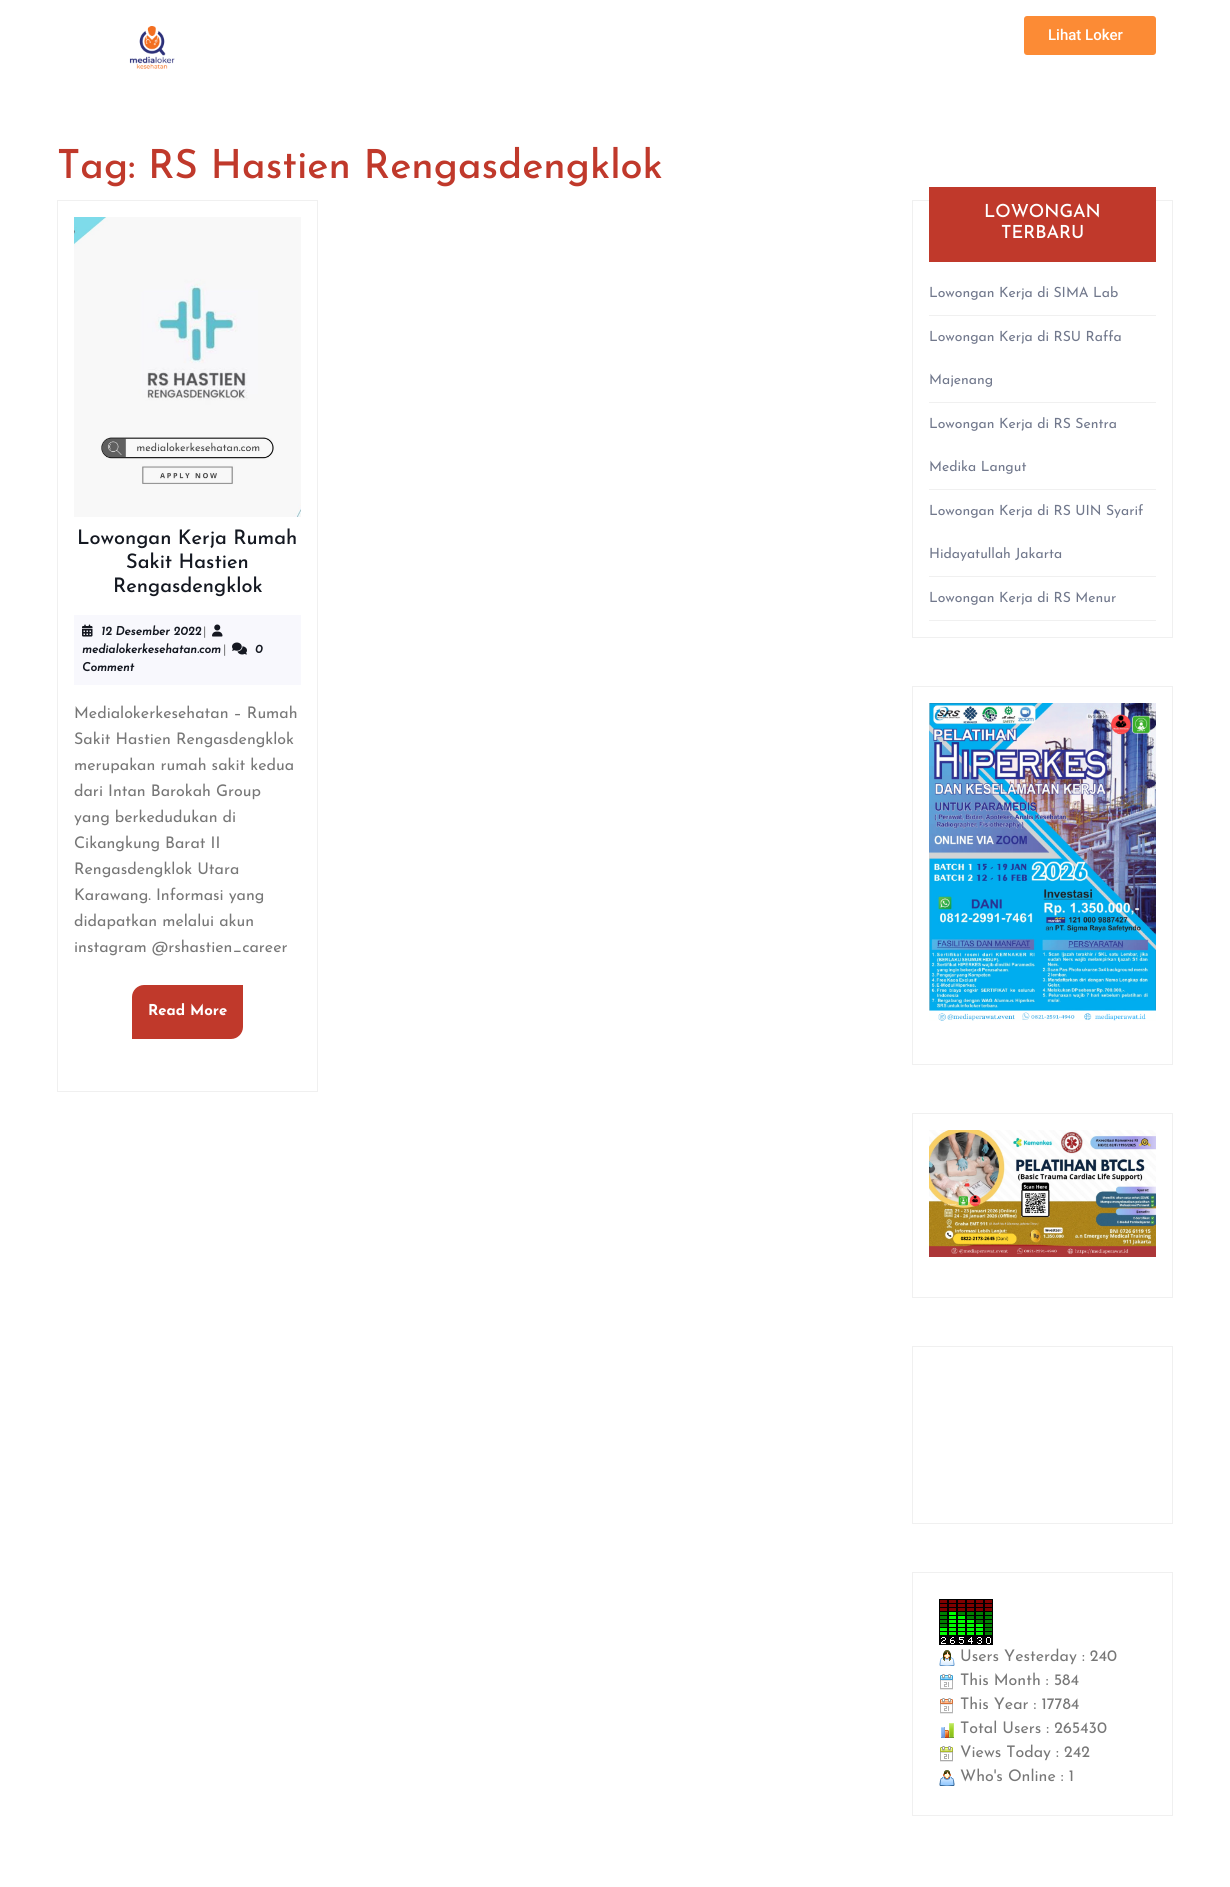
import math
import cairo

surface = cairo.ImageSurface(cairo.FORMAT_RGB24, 1230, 1887)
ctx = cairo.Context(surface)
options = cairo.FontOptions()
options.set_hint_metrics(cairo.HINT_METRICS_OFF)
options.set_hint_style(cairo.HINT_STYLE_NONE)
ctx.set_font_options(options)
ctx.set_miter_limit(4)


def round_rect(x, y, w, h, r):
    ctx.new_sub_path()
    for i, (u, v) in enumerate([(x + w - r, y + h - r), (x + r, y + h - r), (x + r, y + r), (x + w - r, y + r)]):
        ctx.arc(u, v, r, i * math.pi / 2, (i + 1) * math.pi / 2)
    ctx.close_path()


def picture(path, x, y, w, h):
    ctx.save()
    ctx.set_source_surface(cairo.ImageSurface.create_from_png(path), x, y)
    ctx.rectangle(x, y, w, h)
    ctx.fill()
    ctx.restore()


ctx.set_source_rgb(1, 1, 1)
ctx.paint()
picture("img1.png", 129, 26, 46, 43)
ctx.set_source_rgb(0.988, 0.545, 0.208)
round_rect(1024, 16, 132, 39, 3)
ctx.fill()
ctx.select_font_face("Roboto Medium")
ctx.set_font_size(15)
ctx.set_source_rgb(1, 1, 1)
ctx.move_to(1048, 40)
ctx.show_text("Lihat Loker")
ctx.select_font_face("Josefin Sans Medium")
ctx.set_font_size(40)
ctx.set_source_rgb(0.753, 0.224, 0.169)
ctx.move_to(57, 178)
ctx.show_text("Tag: RS Hastien Rengasdengklok")
ctx.rectangle(57.5, 200.5, 260, 891)
ctx.set_source_rgb(0.941, 0.941, 0.941)
ctx.set_line_width(1)
ctx.stroke()
picture("img2.png", 74, 217, 227, 300)
ctx.set_font_size(20)
ctx.set_source_rgb(0.082, 0.094, 0.129)
ctx.move_to(77, 544)
ctx.show_text("Lowongan Kerja Rumah")
ctx.move_to(126, 568)
ctx.show_text("Sakit Hastien")
ctx.move_to(113, 592)
ctx.show_text("Rengasdengklok")
ctx.set_source_rgb(0.969, 0.969, 0.992)
ctx.rectangle(74, 615, 227, 70)
ctx.fill()
picture("img3.png", 82, 624, 11, 13)
ctx.select_font_face("Josefin Sans", cairo.FONT_SLANT_ITALIC, cairo.FONT_WEIGHT_BOLD)
ctx.set_font_size(12)
ctx.set_source_rgb(0.082, 0.094, 0.129)
ctx.move_to(101, 635)
ctx.show_text("12 Desember 2022")
ctx.select_font_face("Josefin Sans")
ctx.set_source_rgb(0.467, 0.467, 0.467)
ctx.move_to(203, 635)
ctx.show_text("|")
picture("img4.png", 212, 624, 11, 13)
ctx.select_font_face("Josefin Sans", cairo.FONT_SLANT_ITALIC, cairo.FONT_WEIGHT_BOLD)
ctx.set_source_rgb(0.082, 0.094, 0.129)
ctx.move_to(82, 653)
ctx.show_text("medialokerkesehatan.com")
ctx.select_font_face("Josefin Sans")
ctx.set_source_rgb(0.467, 0.467, 0.467)
ctx.move_to(223, 653)
ctx.show_text("|")
picture("img5.png", 232, 642, 15, 13)
ctx.select_font_face("Josefin Sans", cairo.FONT_SLANT_ITALIC, cairo.FONT_WEIGHT_BOLD)
ctx.set_source_rgb(0.082, 0.094, 0.129)
ctx.move_to(255, 653)
ctx.show_text("0")
ctx.move_to(82, 671)
ctx.show_text("Comment")
ctx.select_font_face("Josefin Sans")
ctx.set_font_size(16)
ctx.set_source_rgb(0.467, 0.467, 0.467)
ctx.move_to(74, 718)
ctx.show_text("Medialokerkesehatan – Rumah")
ctx.move_to(74, 744)
ctx.show_text("Sakit Hastien Rengasdengklok")
ctx.move_to(74, 770)
ctx.show_text("merupakan rumah sakit kedua")
ctx.move_to(74, 796)
ctx.show_text("dari Intan Barokah Group")
ctx.move_to(74, 822)
ctx.show_text("yang berkedudukan di")
ctx.move_to(74, 848)
ctx.show_text("Cikangkung Barat II")
ctx.move_to(74, 874)
ctx.show_text("Rengasdengklok Utara")
ctx.move_to(74, 900)
ctx.show_text("Karawang. Informasi yang")
ctx.move_to(74, 926)
ctx.show_text("didapatkan melalui akun")
ctx.move_to(74, 952)
ctx.show_text("instagram @rshastien_career")
ctx.set_source_rgb(0.753, 0.224, 0.169)
ctx.new_path()
ctx.move_to(144, 985)
ctx.line_to(243, 985)
ctx.line_to(243, 1027)
ctx.curve_to(243, 1033.5, 237.5, 1039, 231, 1039)
ctx.line_to(132, 1039)
ctx.line_to(132, 997)
ctx.curve_to(132, 990.5, 137.5, 985, 144, 985)
ctx.close_path()
ctx.fill()
ctx.select_font_face("Josefin Sans", cairo.FONT_SLANT_NORMAL, cairo.FONT_WEIGHT_BOLD)
ctx.set_font_size(15)
ctx.set_source_rgb(1, 1, 1)
ctx.move_to(148, 1015)
ctx.show_text("Read More")
ctx.rectangle(912.5, 200.5, 260, 437)
ctx.set_source_rgb(0.941, 0.941, 0.941)
ctx.stroke()
ctx.set_source_rgb(0.753, 0.224, 0.169)
ctx.rectangle(929, 187, 227, 75)
ctx.fill()
ctx.select_font_face("Josefin Sans Medium")
ctx.set_font_size(18)
ctx.set_source_rgb(1, 1, 1)
ctx.move_to(984, 217)
ctx.show_text("LOWONGAN")
ctx.move_to(1001, 238)
ctx.show_text("TERBARU")
ctx.set_source_rgb(0.941, 0.941, 0.941)
ctx.rectangle(929, 315, 227, 1)
ctx.fill()
ctx.select_font_face("Josefin Sans")
ctx.set_font_size(14)
ctx.set_source_rgb(0.443, 0.471, 0.549)
ctx.move_to(929, 297)
ctx.show_text("Lowongan Kerja di SIMA Lab")
ctx.set_source_rgb(0.941, 0.941, 0.941)
ctx.rectangle(929, 402, 227, 1)
ctx.fill()
ctx.set_source_rgb(0.443, 0.471, 0.549)
ctx.move_to(929, 341)
ctx.show_text("Lowongan Kerja di RSU Raffa")
ctx.move_to(929, 384)
ctx.show_text("Majenang")
ctx.set_source_rgb(0.941, 0.941, 0.941)
ctx.rectangle(929, 489, 227, 1)
ctx.fill()
ctx.set_source_rgb(0.443, 0.471, 0.549)
ctx.move_to(929, 428)
ctx.show_text("Lowongan Kerja di RS Sentra")
ctx.move_to(929, 471)
ctx.show_text("Medika Langut")
ctx.set_source_rgb(0.941, 0.941, 0.941)
ctx.rectangle(929, 576, 227, 1)
ctx.fill()
ctx.set_source_rgb(0.443, 0.471, 0.549)
ctx.move_to(929, 515)
ctx.show_text("Lowongan Kerja di RS UIN Syarif")
ctx.move_to(929, 558)
ctx.show_text("Hidayatullah Jakarta")
ctx.set_source_rgb(0.941, 0.941, 0.941)
ctx.rectangle(929, 620, 227, 1)
ctx.fill()
ctx.set_source_rgb(0.443, 0.471, 0.549)
ctx.move_to(929, 602)
ctx.show_text("Lowongan Kerja di RS Menur")
ctx.rectangle(912.5, 686.5, 260, 378)
ctx.set_source_rgb(0.941, 0.941, 0.941)
ctx.stroke()
picture("img6.png", 929, 703, 227, 318)
ctx.rectangle(912.5, 1113.5, 260, 184)
ctx.stroke()
picture("img7.png", 929, 1130, 227, 127)
ctx.rectangle(912.5, 1346.5, 260, 177)
ctx.stroke()
ctx.rectangle(912.5, 1572.5, 260, 243)
ctx.stroke()
picture("img8.png", 939, 1599, 9, 46)
picture("img9.png", 948, 1599, 9, 46)
picture("img10.png", 957, 1599, 9, 46)
picture("img11.png", 966, 1599, 9, 46)
picture("img12.png", 975, 1599, 9, 46)
picture("img13.png", 984, 1599, 9, 46)
picture("img14.png", 939, 1650, 16, 16)
ctx.set_font_size(16)
ctx.set_source_rgb(0.467, 0.467, 0.467)
ctx.move_to(960, 1661)
ctx.show_text("Users Yesterday : 240")
picture("img15.png", 940, 1674, 13, 16)
ctx.move_to(960, 1685)
ctx.show_text("This Month : 584")
picture("img16.png", 940, 1698, 13, 16)
ctx.move_to(960, 1709)
ctx.show_text("This Year : 17784")
picture("img17.png", 941, 1723, 13, 15)
ctx.move_to(960, 1733)
ctx.show_text("Total Users : 265430")
picture("img18.png", 940, 1746, 13, 16)
ctx.move_to(960, 1757)
ctx.show_text("Views Today : 242")
picture("img19.png", 939, 1770, 16, 16)
ctx.move_to(960, 1781)
ctx.show_text("Who's Online : 1")
surface.write_to_png("page.png")
